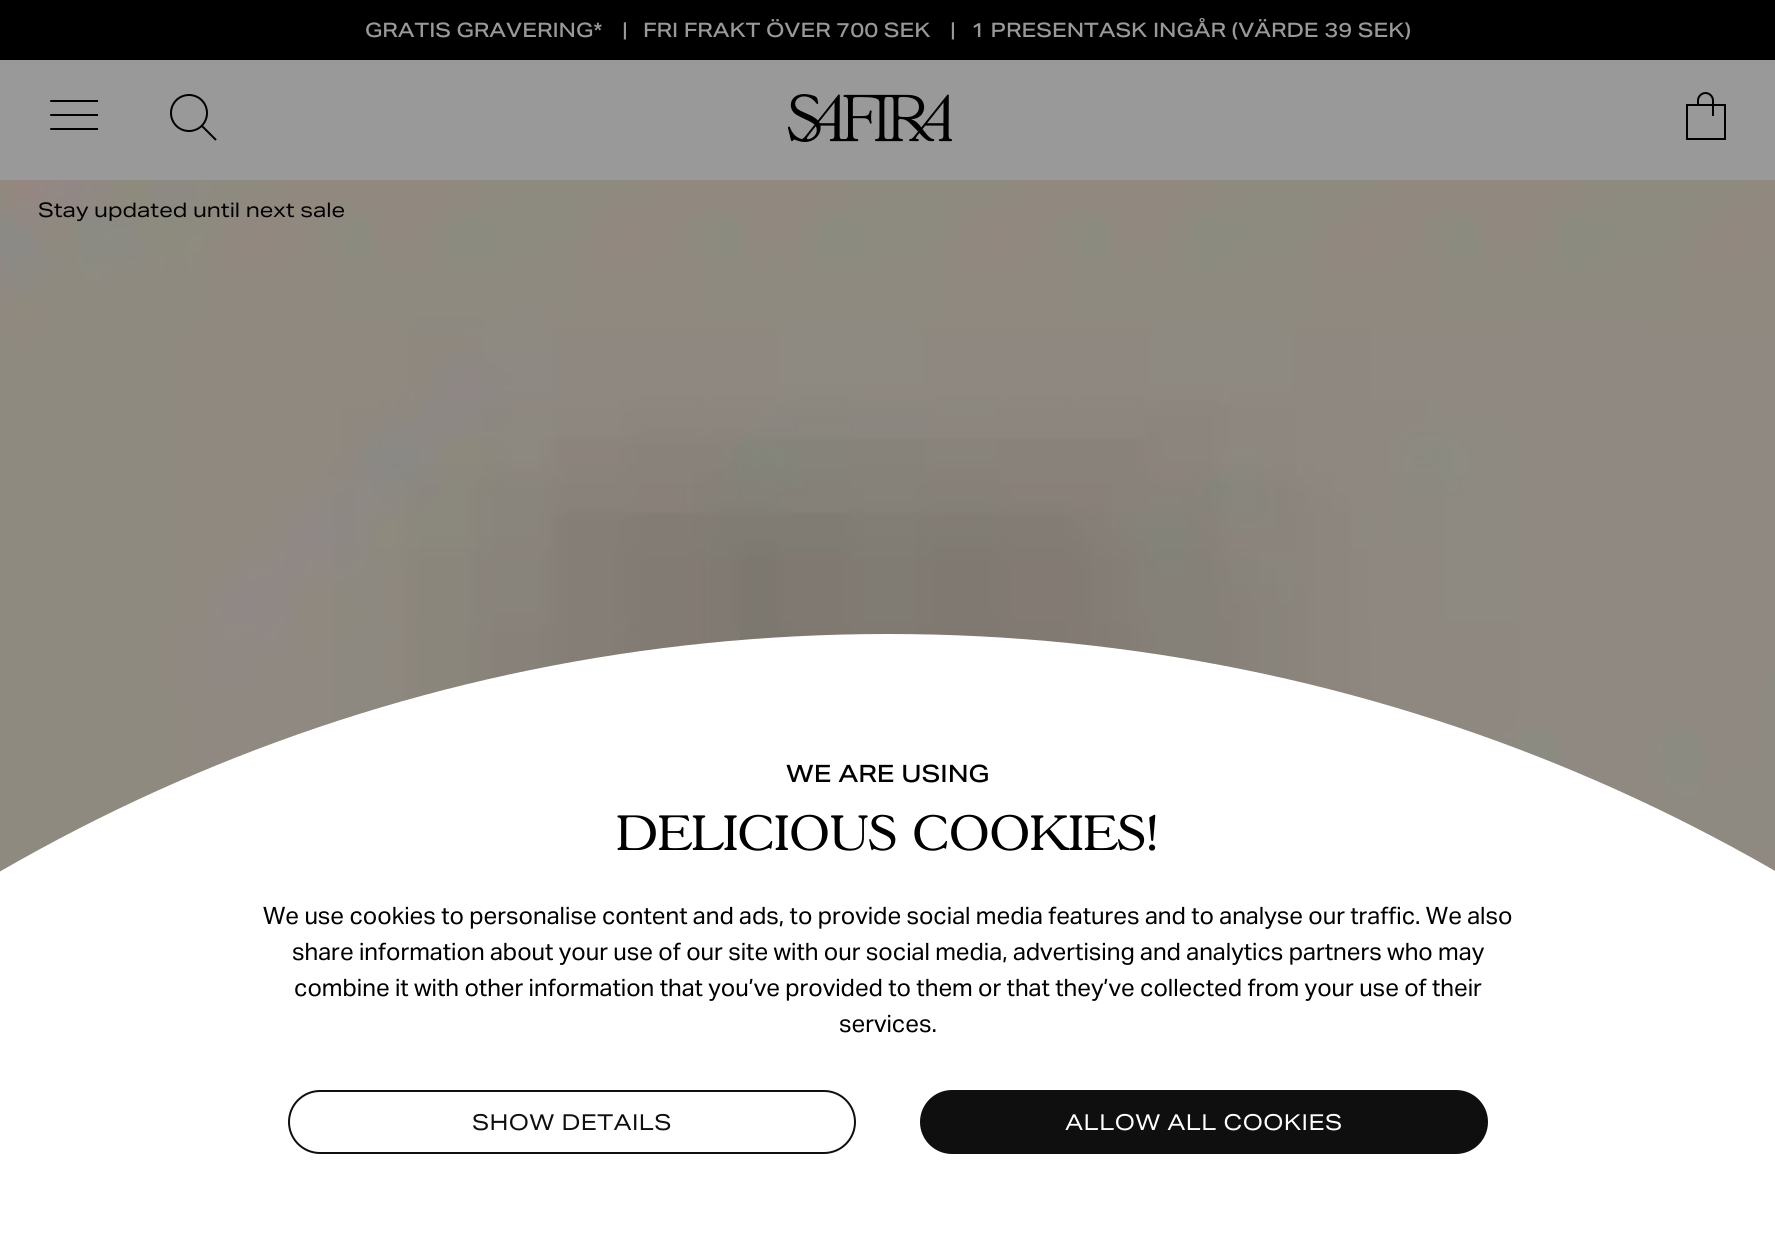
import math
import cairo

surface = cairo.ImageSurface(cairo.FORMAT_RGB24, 1775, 1233)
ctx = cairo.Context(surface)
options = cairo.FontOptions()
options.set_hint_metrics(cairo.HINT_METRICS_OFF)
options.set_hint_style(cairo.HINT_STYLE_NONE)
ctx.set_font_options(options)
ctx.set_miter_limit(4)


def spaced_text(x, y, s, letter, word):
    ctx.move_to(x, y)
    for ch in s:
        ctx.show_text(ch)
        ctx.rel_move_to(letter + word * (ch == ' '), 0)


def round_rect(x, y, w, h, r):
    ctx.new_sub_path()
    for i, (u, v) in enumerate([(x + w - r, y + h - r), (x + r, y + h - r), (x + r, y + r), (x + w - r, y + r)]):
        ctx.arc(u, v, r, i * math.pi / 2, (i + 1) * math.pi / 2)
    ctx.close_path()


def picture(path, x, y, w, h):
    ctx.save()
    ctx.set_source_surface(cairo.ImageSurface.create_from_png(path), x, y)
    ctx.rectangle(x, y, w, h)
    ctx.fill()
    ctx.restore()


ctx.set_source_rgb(0.6, 0.6, 0.6)
ctx.paint()
ctx.set_source_rgb(0, 0, 0)
ctx.rectangle(0, 0, 1775, 60)
ctx.fill()
ctx.select_font_face("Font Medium")
ctx.set_font_size(20)
ctx.set_source_rgb(0.6, 0.6, 0.6)
ctx.move_to(365, 37)
ctx.show_text("GRATIS GRAVERING*")
ctx.move_to(622, 37)
ctx.show_text("|")
ctx.move_to(643, 37)
ctx.show_text("FRI FRAKT ÖVER 700 SEK")
ctx.move_to(950, 37)
ctx.show_text("|")
ctx.move_to(971, 37)
ctx.show_text("1 PRESENTASK INGÅR (VÄRDE 39 SEK)")
picture("img1.png", 50, 100, 48, 30)
ctx.new_path()
ctx.move_to(189, 131)
ctx.curve_to(199, 131, 207, 123, 207, 113)
ctx.curve_to(207, 103, 199, 95, 189, 95)
ctx.curve_to(179, 95, 171, 103, 171, 113)
ctx.curve_to(171, 123, 179, 131, 189, 131)
ctx.close_path()
ctx.move_to(216, 140)
ctx.line_to(202, 126)
ctx.set_source_rgb(0, 0, 0)
ctx.stroke()
picture("img2.png", 787, 94, 166, 48)
ctx.new_path()
ctx.move_to(1713, 116)
ctx.line_to(1713, 100.5)
ctx.curve_to(1713, 96.5, 1709.5, 93, 1705.5, 93)
ctx.curve_to(1701.5, 93, 1698, 96.5, 1698, 100.5)
ctx.line_to(1698, 106)
ctx.move_to(1725, 139)
ctx.line_to(1687, 139)
ctx.line_to(1687, 105)
ctx.line_to(1725, 105)
ctx.close_path()
ctx.stroke()
picture("img3.png", 0, 180, 1775, 692)
ctx.select_font_face("Font")
ctx.set_font_size(20.2)
ctx.move_to(38, 217)
ctx.show_text("Stay updated until next sale")
ctx.set_source_rgb(1, 1, 1)
ctx.new_path()
ctx.move_to(888, 635)
ctx.curve_to(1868.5, 635, 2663, 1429.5, 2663, 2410)
ctx.line_to(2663, 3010)
ctx.line_to(-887, 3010)
ctx.line_to(-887, 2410)
ctx.curve_to(-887, 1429.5, -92.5, 635, 888, 635)
ctx.close_path()
ctx.fill_preserve()
ctx.stroke()
ctx.select_font_face("Font Medium")
ctx.set_font_size(24)
ctx.set_source_rgb(0, 0, 0)
ctx.move_to(786, 782)
ctx.show_text("WE ARE USING")
ctx.select_font_face("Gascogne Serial")
ctx.set_font_size(48)
spaced_text(617, 850, "DELICIOUS COOKIES!", 1.4, 0)
ctx.select_font_face("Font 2")
ctx.set_font_size(24)
ctx.move_to(263, 924)
ctx.show_text("We use cookies to personalise content and ads, to provide social media features and to analyse our traffic. We also")
ctx.move_to(292, 960)
ctx.show_text("share information about your use of our site with our social media, advertising and analytics partners who may")
ctx.move_to(294, 996)
ctx.show_text("combine it with other information that you’ve provided to them or that they’ve collected from your use of their")
ctx.move_to(839, 1032)
ctx.show_text("services.")
round_rect(289, 1091, 566, 62, 31)
ctx.set_source_rgb(0.059, 0.059, 0.059)
ctx.stroke()
ctx.select_font_face("Font")
ctx.set_font_size(22)
spaced_text(472, 1130, "SHOW DETAILS", 0.4, 0)
round_rect(921, 1091, 566, 62, 31)
ctx.fill_preserve()
ctx.stroke()
ctx.set_source_rgb(1, 1, 1)
spaced_text(1065, 1130, "ALLOW ALL COOKIES", 0.4, 0)
surface.write_to_png("page.png")
